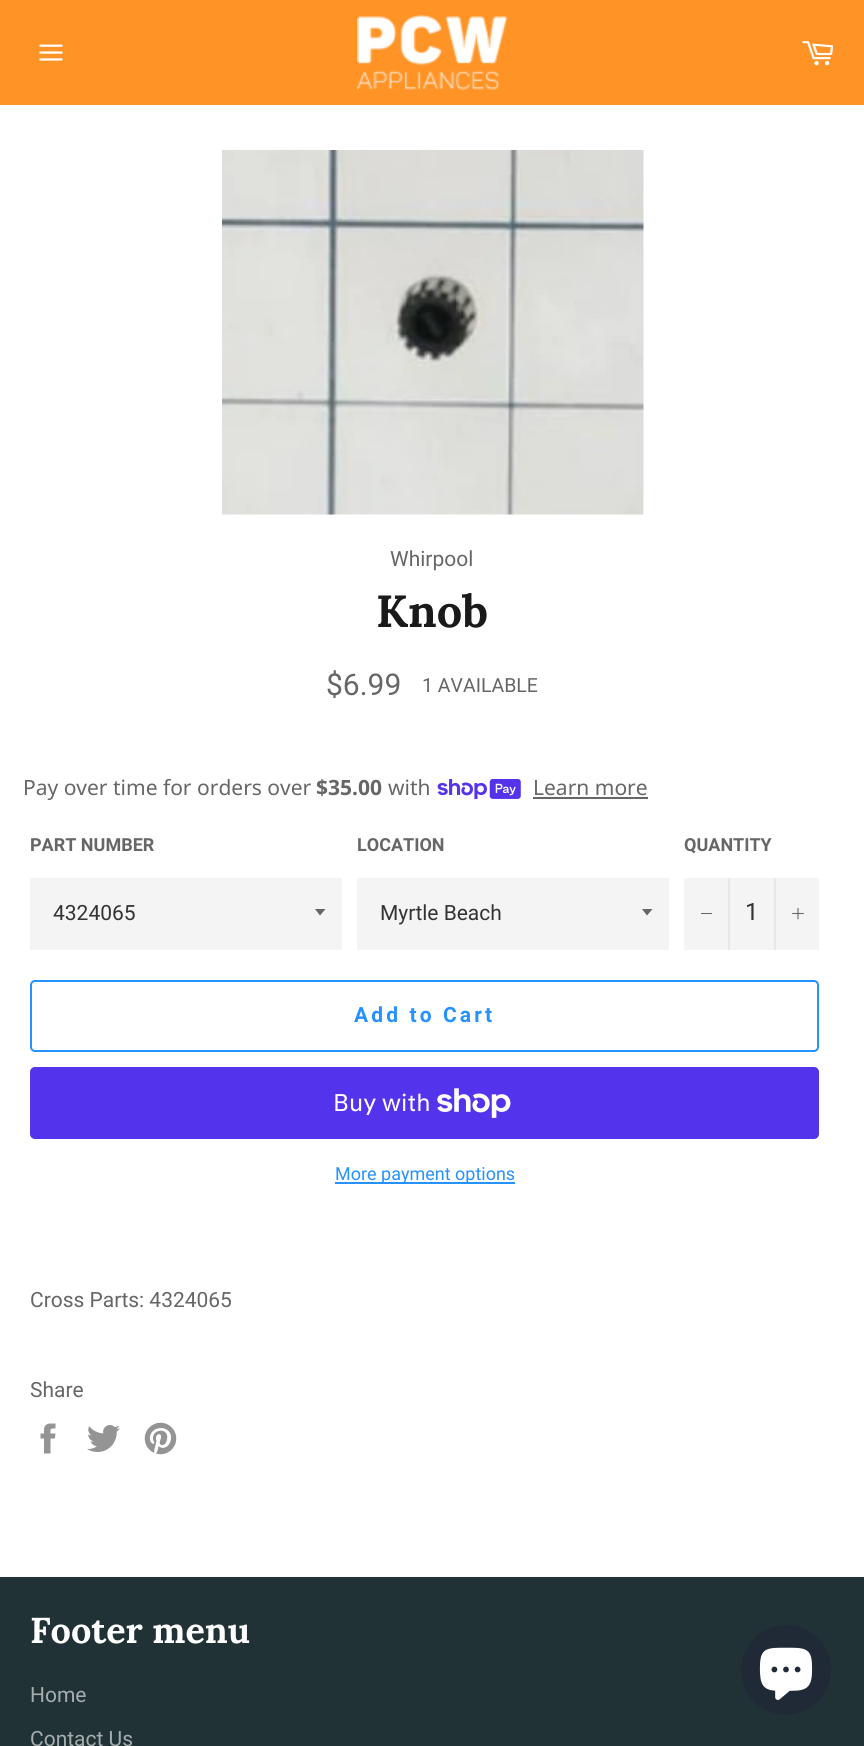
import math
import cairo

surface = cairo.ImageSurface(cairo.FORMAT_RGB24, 864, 1746)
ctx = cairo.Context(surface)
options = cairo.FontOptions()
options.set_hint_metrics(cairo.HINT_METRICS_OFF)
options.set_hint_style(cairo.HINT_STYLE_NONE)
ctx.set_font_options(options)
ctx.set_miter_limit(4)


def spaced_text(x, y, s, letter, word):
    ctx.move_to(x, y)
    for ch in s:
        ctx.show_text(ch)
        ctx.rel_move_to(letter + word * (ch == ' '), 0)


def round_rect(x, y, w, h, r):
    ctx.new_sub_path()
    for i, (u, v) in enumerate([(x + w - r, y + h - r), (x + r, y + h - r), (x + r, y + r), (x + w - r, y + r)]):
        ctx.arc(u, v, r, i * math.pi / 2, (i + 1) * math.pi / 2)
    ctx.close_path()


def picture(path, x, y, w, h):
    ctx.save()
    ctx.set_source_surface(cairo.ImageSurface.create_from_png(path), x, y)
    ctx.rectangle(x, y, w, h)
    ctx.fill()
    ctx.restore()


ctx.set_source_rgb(1, 1, 1)
ctx.paint()
ctx.set_source_rgb(1, 0.576, 0.149)
ctx.rectangle(0, 0, 864, 105)
ctx.fill()
picture("img1.png", 39, 44, 24, 17)
picture("img2.png", 357, 15, 150, 75)
picture("img3.png", 802, 41, 31, 25)
picture("img4.png", 222, 150, 422, 365)
ctx.select_font_face("Roboto")
ctx.set_font_size(21)
ctx.set_source_rgb(0.4, 0.4, 0.4)
ctx.move_to(390, 566)
ctx.show_text("Whirpool")
ctx.select_font_face("Lora", cairo.FONT_SLANT_NORMAL, cairo.FONT_WEIGHT_BOLD)
ctx.set_font_size(45)
ctx.set_source_rgb(0.102, 0.102, 0.102)
ctx.move_to(376, 627)
ctx.show_text("Knob")
ctx.select_font_face("Roboto")
ctx.set_font_size(30)
ctx.set_source_rgb(0.4, 0.4, 0.4)
ctx.move_to(326, 695)
ctx.show_text("$6.99")
ctx.set_font_size(19.5)
ctx.move_to(422, 692)
ctx.show_text("1 AVAILABLE")
ctx.select_font_face("Noto Sans")
ctx.set_font_size(21)
ctx.move_to(23, 795)
ctx.show_text("Pay over time for orders over")
ctx.select_font_face("Noto Sans", cairo.FONT_SLANT_NORMAL, cairo.FONT_WEIGHT_BOLD)
ctx.move_to(316, 795)
ctx.show_text("$35.00")
ctx.select_font_face("Noto Sans")
ctx.move_to(388, 795)
ctx.show_text("with")
picture("img5.png", 437, 779, 84, 21)
ctx.move_to(533, 795)
ctx.show_text("Learn more")
ctx.rectangle(533, 797, 115, 2)
ctx.fill()
ctx.select_font_face("Roboto", cairo.FONT_SLANT_NORMAL, cairo.FONT_WEIGHT_BOLD)
ctx.set_font_size(18)
ctx.move_to(30, 851)
ctx.show_text("PART NUMBER")
ctx.set_source_rgb(0.957, 0.957, 0.957)
ctx.rectangle(30, 878, 312, 72)
ctx.fill()
ctx.set_source_rgb(0.4, 0.4, 0.4)
ctx.new_path()
ctx.move_to(315, 909)
ctx.line_to(320, 915.5)
ctx.line_to(325.5, 909)
ctx.close_path()
ctx.fill()
ctx.select_font_face("Roboto")
ctx.set_font_size(21)
ctx.set_source_rgb(0.2, 0.2, 0.2)
ctx.move_to(53, 920)
ctx.show_text("4324065")
ctx.select_font_face("Roboto", cairo.FONT_SLANT_NORMAL, cairo.FONT_WEIGHT_BOLD)
ctx.set_font_size(18)
ctx.set_source_rgb(0.4, 0.4, 0.4)
ctx.move_to(357, 851)
ctx.show_text("LOCATION")
ctx.set_source_rgb(0.957, 0.957, 0.957)
ctx.rectangle(357, 878, 312, 72)
ctx.fill()
ctx.set_source_rgb(0.4, 0.4, 0.4)
ctx.new_path()
ctx.move_to(642, 909)
ctx.line_to(647, 915.5)
ctx.line_to(652.5, 909)
ctx.close_path()
ctx.fill()
ctx.select_font_face("Roboto")
ctx.set_font_size(21)
ctx.set_source_rgb(0.2, 0.2, 0.2)
ctx.move_to(380, 920)
ctx.show_text("Myrtle Beach")
ctx.select_font_face("Roboto", cairo.FONT_SLANT_NORMAL, cairo.FONT_WEIGHT_BOLD)
ctx.set_font_size(18)
ctx.set_source_rgb(0.4, 0.4, 0.4)
ctx.move_to(684, 851)
ctx.show_text("QUANTITY")
ctx.set_source_rgb(0.957, 0.957, 0.957)
ctx.rectangle(684, 878, 135, 72)
ctx.fill()
ctx.set_source_rgb(0.906, 0.906, 0.906)
ctx.rectangle(728, 878, 2, 72)
ctx.fill()
ctx.set_source_rgb(0.4, 0.4, 0.4)
ctx.rectangle(701, 913, 11, 1)
ctx.fill()
ctx.select_font_face("Roboto")
ctx.set_font_size(24)
ctx.set_source_rgb(0.2, 0.2, 0.2)
ctx.move_to(745, 920)
ctx.show_text("1")
ctx.set_source_rgb(0.906, 0.906, 0.906)
ctx.rectangle(774, 878, 2, 72)
ctx.fill()
picture("img6.png", 792, 908, 12, 12)
round_rect(31, 981, 787, 70, 4)
ctx.set_source_rgb(0.149, 0.573, 1)
ctx.stroke()
ctx.select_font_face("Roboto", cairo.FONT_SLANT_NORMAL, cairo.FONT_WEIGHT_BOLD)
ctx.set_font_size(21)
spaced_text(354, 1022, "Add to Cart", 3.1, 0)
ctx.set_source_rgb(0.329, 0.2, 0.922)
round_rect(30, 1067, 789, 72, 5)
ctx.fill()
ctx.select_font_face("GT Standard")
ctx.set_font_size(24)
ctx.set_source_rgb(1, 1, 1)
ctx.move_to(333, 1111)
ctx.show_text("Buy with")
picture("img7.png", 437, 1088, 74, 30)
ctx.set_source_rgb(0.149, 0.573, 1)
ctx.rectangle(335, 1182, 180, 2)
ctx.fill()
ctx.select_font_face("Roboto")
ctx.set_font_size(18)
ctx.move_to(335, 1180)
ctx.show_text("More payment options")
ctx.set_font_size(21)
ctx.set_source_rgb(0.4, 0.4, 0.4)
ctx.move_to(30, 1307)
ctx.show_text("Cross Parts: 4324065")
ctx.move_to(30, 1397)
ctx.show_text("Share")
picture("img8.png", 40, 1423, 16, 31)
picture("img9.png", 87, 1425, 33, 27)
picture("img10.png", 144, 1422, 33, 33)
ctx.set_source_rgb(0.129, 0.196, 0.212)
ctx.rectangle(0, 1577, 864, 169)
ctx.fill()
ctx.select_font_face("Lora", cairo.FONT_SLANT_NORMAL, cairo.FONT_WEIGHT_BOLD)
ctx.set_font_size(36)
ctx.set_source_rgb(1, 1, 1)
ctx.move_to(30, 1643)
ctx.show_text("Footer menu")
ctx.select_font_face("Roboto")
ctx.set_font_size(21)
ctx.set_source_rgb(0.651, 0.678, 0.686)
ctx.move_to(30, 1702)
ctx.show_text("Home")
ctx.move_to(30, 1746)
ctx.show_text("Contact Us")
ctx.set_source_rgb(0.125, 0.165, 0.212)
ctx.new_path()
ctx.arc(786, 1670, 45, 0, 2 * math.pi)
ctx.fill()
picture("img11.png", 759, 1647, 54, 53)
surface.write_to_png("page.png")
